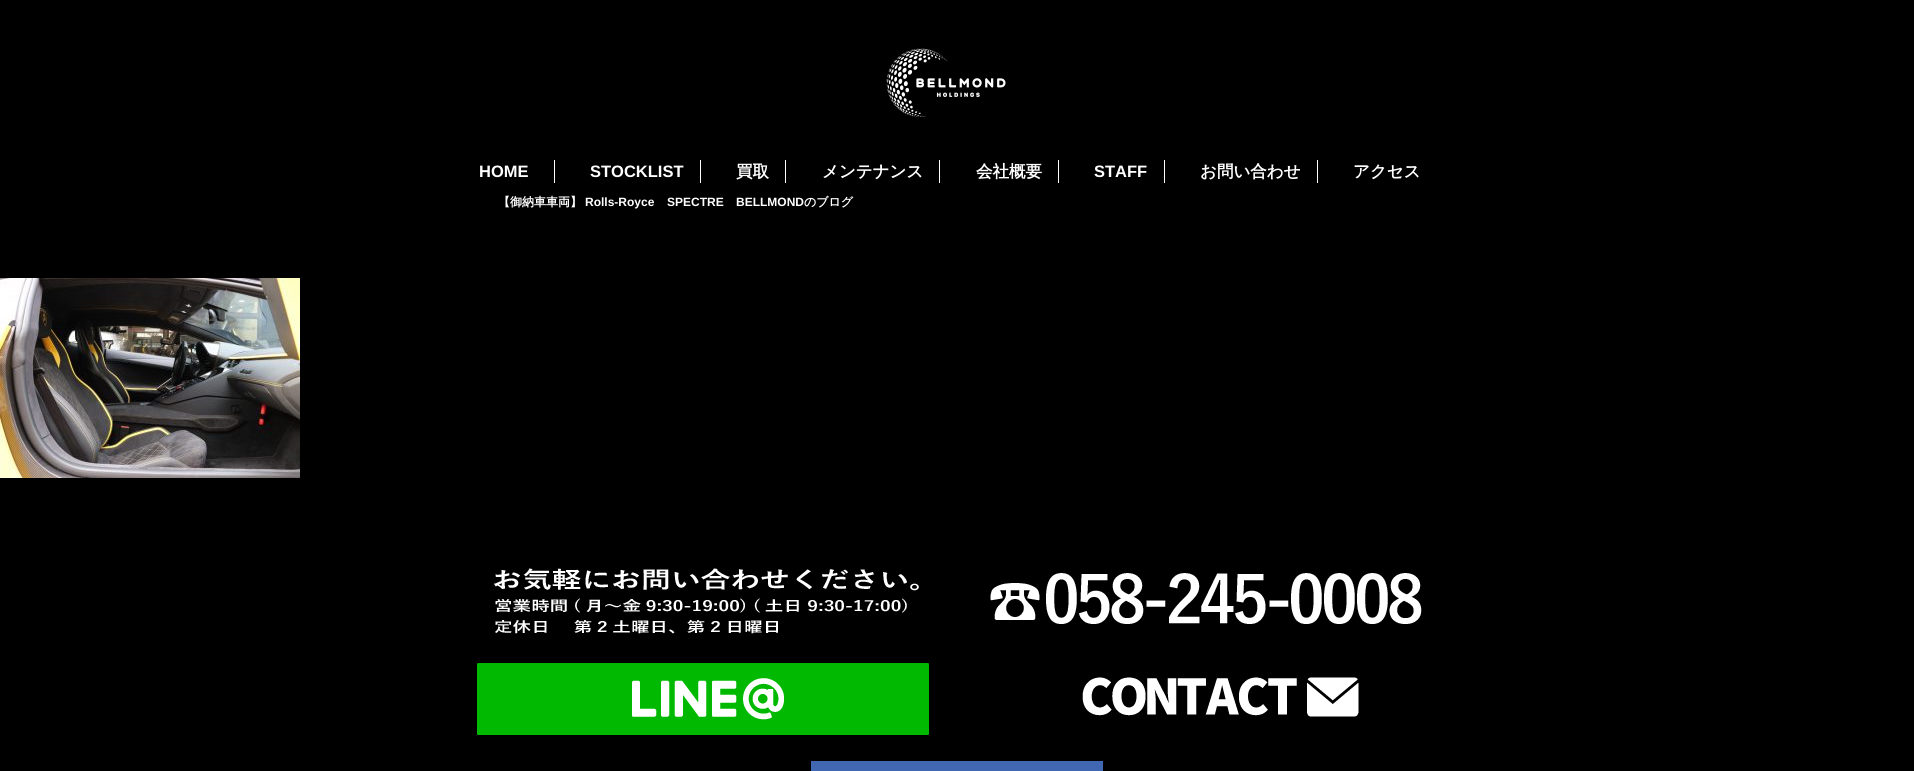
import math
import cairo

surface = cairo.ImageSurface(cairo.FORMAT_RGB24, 1914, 771)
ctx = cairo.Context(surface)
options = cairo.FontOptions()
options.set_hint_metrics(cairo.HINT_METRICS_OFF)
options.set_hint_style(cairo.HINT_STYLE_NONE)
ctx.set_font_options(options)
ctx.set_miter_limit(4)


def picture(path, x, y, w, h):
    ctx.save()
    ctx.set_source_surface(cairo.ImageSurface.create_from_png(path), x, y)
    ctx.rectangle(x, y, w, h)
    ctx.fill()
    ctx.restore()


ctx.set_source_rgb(0, 0, 0)
ctx.paint()
picture("img1.png", 886, 48, 120, 69)
ctx.set_source_rgb(1, 1, 1)
ctx.rectangle(554, 160, 1, 23)
ctx.fill()
ctx.select_font_face("Liberation Sans", cairo.FONT_SLANT_NORMAL, cairo.FONT_WEIGHT_BOLD)
ctx.set_font_size(16.5)
ctx.move_to(479, 177)
ctx.show_text("HOME")
ctx.rectangle(700, 160, 1, 23)
ctx.fill()
ctx.move_to(590, 177)
ctx.show_text("STOCKLIST")
ctx.rectangle(785, 160, 1, 23)
ctx.fill()
ctx.select_font_face("WenQuanYi Zen Hei", cairo.FONT_SLANT_NORMAL, cairo.FONT_WEIGHT_BOLD)
ctx.move_to(736, 177)
ctx.show_text("買取")
ctx.rectangle(939, 160, 1, 23)
ctx.fill()
ctx.move_to(822, 177)
ctx.show_text("メンテナンス")
ctx.rectangle(1058, 160, 1, 23)
ctx.fill()
ctx.move_to(976, 177)
ctx.show_text("会社概要")
ctx.rectangle(1164, 160, 1, 23)
ctx.fill()
ctx.select_font_face("Liberation Sans", cairo.FONT_SLANT_NORMAL, cairo.FONT_WEIGHT_BOLD)
ctx.move_to(1094, 177)
ctx.show_text("STAFF")
ctx.rectangle(1317, 160, 1, 23)
ctx.fill()
ctx.select_font_face("WenQuanYi Zen Hei", cairo.FONT_SLANT_NORMAL, cairo.FONT_WEIGHT_BOLD)
ctx.move_to(1200, 177)
ctx.show_text("お問い合わせ")
ctx.move_to(1353, 177)
ctx.show_text("アクセス")
ctx.set_font_size(12)
ctx.move_to(498, 206)
ctx.show_text("【御納車車両】")
ctx.select_font_face("Liberation Sans", cairo.FONT_SLANT_NORMAL, cairo.FONT_WEIGHT_BOLD)
ctx.move_to(585, 206)
ctx.show_text("Rolls-Royce")
ctx.move_to(667, 206)
ctx.show_text("SPECTRE")
ctx.move_to(736, 206)
ctx.show_text("BELLMOND")
ctx.select_font_face("WenQuanYi Zen Hei", cairo.FONT_SLANT_NORMAL, cairo.FONT_WEIGHT_BOLD)
ctx.move_to(804, 206)
ctx.show_text("のブログ")
picture("img2.png", 0, 278, 300, 200)
picture("img3.png", 494, 568, 425, 66)
picture("img4.png", 477, 663, 452, 72)
picture("img5.png", 990, 573, 432, 51)
picture("img6.png", 1082, 677, 277, 40)
ctx.set_source_rgb(0.259, 0.404, 0.698)
ctx.rectangle(811, 761, 292, 10)
ctx.fill()
surface.write_to_png("page.png")
